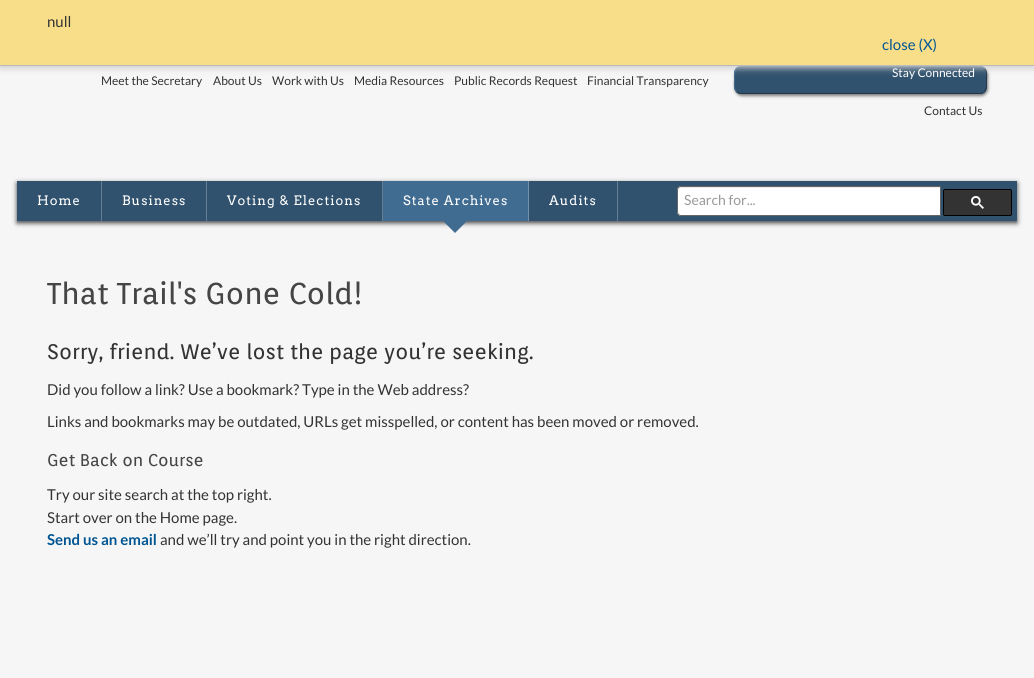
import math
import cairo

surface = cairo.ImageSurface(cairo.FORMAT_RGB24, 1034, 678)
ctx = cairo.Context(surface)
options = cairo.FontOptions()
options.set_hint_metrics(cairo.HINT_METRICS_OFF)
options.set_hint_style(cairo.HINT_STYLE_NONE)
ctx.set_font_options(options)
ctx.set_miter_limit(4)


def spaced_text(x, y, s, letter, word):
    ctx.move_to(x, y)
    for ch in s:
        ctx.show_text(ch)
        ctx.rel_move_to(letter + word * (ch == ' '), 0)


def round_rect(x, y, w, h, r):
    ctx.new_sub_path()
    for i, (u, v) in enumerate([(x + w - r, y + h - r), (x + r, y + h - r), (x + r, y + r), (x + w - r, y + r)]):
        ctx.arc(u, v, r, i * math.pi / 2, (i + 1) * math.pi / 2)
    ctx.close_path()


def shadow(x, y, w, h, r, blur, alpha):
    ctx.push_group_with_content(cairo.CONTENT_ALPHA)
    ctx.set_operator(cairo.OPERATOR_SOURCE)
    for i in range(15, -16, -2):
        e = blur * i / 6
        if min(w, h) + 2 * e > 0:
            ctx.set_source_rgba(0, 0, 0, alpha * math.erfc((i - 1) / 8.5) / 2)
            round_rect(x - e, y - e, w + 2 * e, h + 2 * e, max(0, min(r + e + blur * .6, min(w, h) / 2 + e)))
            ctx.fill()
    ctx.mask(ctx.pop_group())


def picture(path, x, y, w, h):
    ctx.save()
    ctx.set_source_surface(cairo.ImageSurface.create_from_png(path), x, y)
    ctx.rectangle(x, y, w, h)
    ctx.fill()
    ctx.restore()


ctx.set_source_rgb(0.961, 0.961, 0.961)
ctx.paint()
ctx.set_source_rgb(0, 0, 0)
shadow(735, 68, 253, 28, 7, 1.5, 0.5)
ctx.set_source_rgb(0.192, 0.322, 0.431)
round_rect(734, 66, 253, 28, 7)
ctx.fill()
ctx.new_path()
ctx.move_to(984.5, 68.5)
ctx.curve_to(987.5, 71.5, 986.5, 76.5, 986.5, 80)
ctx.curve_to(986.5, 85, 987.5, 93.5, 980, 93.5)
ctx.line_to(740.5, 93.5)
ctx.curve_to(739, 93.5, 737.5, 92.5, 736.5, 91.5)
ctx.set_source_rgb(0.129, 0.22, 0.294)
ctx.set_line_width(1)
ctx.stroke()
ctx.new_path()
ctx.move_to(736.5, 91.5)
ctx.curve_to(733.5, 88.5, 734.5, 83.5, 734.5, 80)
ctx.curve_to(734.5, 75, 733.5, 66.5, 741, 66.5)
ctx.line_to(980.5, 66.5)
ctx.curve_to(982, 66.5, 983.5, 67.5, 984.5, 68.5)
ctx.set_source_rgb(0.255, 0.424, 0.569)
ctx.stroke()
ctx.set_source_rgb(0.8, 0.8, 0.8)
shadow(0, 2, 1034, 66, 0, 3.5, 1)
ctx.set_source_rgb(0.973, 0.871, 0.541)
ctx.rectangle(0, 0, 1034, 65)
ctx.fill()
ctx.set_source_rgb(0.733, 0.733, 0.733)
ctx.rectangle(0, 65, 1034, 1)
ctx.fill()
ctx.select_font_face("Lato")
ctx.set_font_size(15)
ctx.set_source_rgb(0.2, 0.2, 0.2)
ctx.move_to(47, 27)
ctx.show_text("null")
ctx.set_source_rgb(0, 0.333, 0.573)
ctx.move_to(882, 50)
ctx.show_text("close (X)")
ctx.set_font_size(12)
ctx.set_source_rgb(1, 1, 1)
ctx.move_to(892, 77)
ctx.show_text("Stay Connected")
ctx.set_source_rgb(0.2, 0.2, 0.2)
ctx.move_to(101, 85)
ctx.show_text("Meet the Secretary")
ctx.move_to(213, 85)
ctx.show_text("About Us")
ctx.move_to(272, 85)
ctx.show_text("Work with Us")
ctx.move_to(354, 85)
ctx.show_text("Media Resources")
ctx.move_to(454, 85)
ctx.show_text("Public Records Request")
ctx.move_to(587, 85)
ctx.show_text("Financial Transparency")
ctx.move_to(924, 115)
ctx.show_text("Contact Us")
ctx.set_source_rgb(0, 0, 0)
shadow(17, 183, 1000, 40, 0, 2.5, 0.75)
ctx.set_source_rgb(0.192, 0.322, 0.431)
ctx.rectangle(17, 181, 1000, 40)
ctx.fill()
ctx.set_source_rgb(0.396, 0.49, 0.573)
ctx.rectangle(101, 181, 1, 40)
ctx.fill()
ctx.select_font_face("Arvo")
ctx.set_font_size(13)
ctx.set_source_rgb(1, 1, 1)
spaced_text(37, 205, "Home", 1, 0)
ctx.set_source_rgb(0.396, 0.49, 0.573)
ctx.rectangle(206, 181, 1, 40)
ctx.fill()
ctx.set_source_rgb(1, 1, 1)
spaced_text(122, 205, "Business", 1, 0)
ctx.set_source_rgb(0.396, 0.49, 0.573)
ctx.rectangle(382, 181, 1, 40)
ctx.fill()
ctx.set_source_rgb(1, 1, 1)
spaced_text(227, 205, "Voting & Elections", 1, 0)
ctx.set_source_rgb(0.255, 0.424, 0.569)
ctx.rectangle(383, 181, 145, 40)
ctx.fill()
ctx.set_source_rgb(0.443, 0.569, 0.678)
ctx.rectangle(528, 181, 1, 40)
ctx.fill()
ctx.set_source_rgb(1, 1, 1)
spaced_text(403, 205, "State Archives", 1, 0)
ctx.set_source_rgb(0.255, 0.424, 0.569)
ctx.new_path()
ctx.move_to(443, 221)
ctx.line_to(467, 221)
ctx.line_to(455, 233)
ctx.close_path()
ctx.fill()
ctx.set_source_rgb(0.396, 0.49, 0.573)
ctx.rectangle(617, 181, 1, 40)
ctx.fill()
ctx.set_source_rgb(1, 1, 1)
spaced_text(549, 205, "Audits", 1, 0)
ctx.new_path()
ctx.move_to(681, 186)
ctx.line_to(941, 186)
ctx.line_to(941, 216)
ctx.line_to(681, 216)
ctx.curve_to(679, 216, 677, 214, 677, 212)
ctx.line_to(677, 190)
ctx.curve_to(677, 188, 679, 186, 681, 186)
ctx.close_path()
ctx.fill()
ctx.set_source_rgb(0.925, 0.925, 0.925)
ctx.new_path()
ctx.move_to(681, 188)
ctx.line_to(940, 188)
ctx.line_to(940, 187)
ctx.line_to(681, 187)
ctx.curve_to(679, 187, 678, 188, 678, 190)
ctx.line_to(678, 191)
ctx.curve_to(678, 189, 679, 188, 681, 188)
ctx.close_path()
ctx.fill()
ctx.new_path()
ctx.move_to(681, 186.5)
ctx.line_to(940.5, 186.5)
ctx.line_to(940.5, 215.5)
ctx.line_to(681, 215.5)
ctx.curve_to(679, 215.5, 677.5, 214, 677.5, 212)
ctx.line_to(677.5, 190)
ctx.curve_to(677.5, 188, 679, 186.5, 681, 186.5)
ctx.close_path()
ctx.set_source_rgb(0.4, 0.4, 0.4)
ctx.stroke()
ctx.select_font_face("Lato")
ctx.set_font_size(14)
ctx.set_source_rgb(0.6, 0.6, 0.6)
ctx.move_to(684, 205)
ctx.show_text("Search for...")
ctx.set_source_rgb(0.2, 0.2, 0.2)
round_rect(943.5, 189.5, 68, 26, 1.5)
ctx.fill_preserve()
ctx.set_source_rgb(0, 0, 0)
ctx.stroke()
picture("img1.png", 971, 196, 13, 13)
ctx.select_font_face("Orienta")
ctx.set_font_size(30)
ctx.set_source_rgb(0.271, 0.271, 0.271)
ctx.move_to(47, 304)
ctx.show_text("That Trail's Gone Cold!")
ctx.set_font_size(21)
ctx.set_source_rgb(0.2, 0.2, 0.2)
ctx.move_to(47, 359)
ctx.show_text("Sorry, friend. We’ve lost the page you’re seeking.")
ctx.select_font_face("Lato")
ctx.set_font_size(15)
ctx.move_to(47, 395)
ctx.show_text("Did you follow a link? Use a bookmark? Type in the Web address?")
ctx.move_to(47, 427)
ctx.show_text("Links and bookmarks may be outdated, URLs get misspelled, or content has been moved or removed.")
ctx.select_font_face("Orienta")
ctx.set_font_size(17)
ctx.set_source_rgb(0.271, 0.271, 0.271)
ctx.move_to(47, 466)
ctx.show_text("Get Back on Course")
ctx.select_font_face("Lato")
ctx.set_font_size(15)
ctx.set_source_rgb(0.2, 0.2, 0.2)
ctx.move_to(47, 500)
ctx.show_text("Try our site search at the top right.")
ctx.move_to(47, 523)
ctx.show_text("Start over on the Home page.")
ctx.select_font_face("Lato", cairo.FONT_SLANT_NORMAL, cairo.FONT_WEIGHT_BOLD)
ctx.set_source_rgb(0, 0.333, 0.573)
ctx.move_to(47, 545)
ctx.show_text("Send us an email")
ctx.select_font_face("Lato")
ctx.set_source_rgb(0.2, 0.2, 0.2)
ctx.move_to(160, 545)
ctx.show_text("and we’ll try and point you in the right direction.")
surface.write_to_png("page.png")
